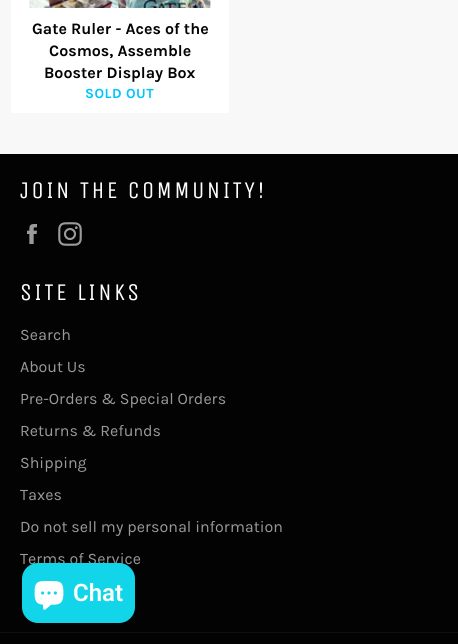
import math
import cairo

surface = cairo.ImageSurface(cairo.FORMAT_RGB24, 458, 644)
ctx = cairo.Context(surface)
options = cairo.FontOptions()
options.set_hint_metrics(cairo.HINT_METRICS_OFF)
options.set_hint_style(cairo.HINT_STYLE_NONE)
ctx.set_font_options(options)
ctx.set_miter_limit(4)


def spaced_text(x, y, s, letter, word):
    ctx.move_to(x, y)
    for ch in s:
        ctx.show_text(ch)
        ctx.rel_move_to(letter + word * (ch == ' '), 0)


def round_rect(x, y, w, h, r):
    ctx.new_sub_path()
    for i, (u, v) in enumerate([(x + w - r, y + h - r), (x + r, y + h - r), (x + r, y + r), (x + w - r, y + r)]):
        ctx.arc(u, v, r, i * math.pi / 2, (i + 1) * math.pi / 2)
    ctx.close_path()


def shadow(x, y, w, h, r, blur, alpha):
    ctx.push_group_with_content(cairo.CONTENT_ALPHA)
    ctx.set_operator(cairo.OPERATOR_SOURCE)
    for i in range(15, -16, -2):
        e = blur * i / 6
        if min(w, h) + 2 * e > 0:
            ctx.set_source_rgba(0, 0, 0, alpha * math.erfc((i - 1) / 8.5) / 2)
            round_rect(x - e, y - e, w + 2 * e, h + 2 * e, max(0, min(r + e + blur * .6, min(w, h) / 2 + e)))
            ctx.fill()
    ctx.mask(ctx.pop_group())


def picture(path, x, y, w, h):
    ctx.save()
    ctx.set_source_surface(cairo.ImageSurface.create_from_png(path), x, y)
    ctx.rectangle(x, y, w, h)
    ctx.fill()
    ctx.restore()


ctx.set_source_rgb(0.969, 0.969, 0.969)
ctx.paint()
ctx.set_source_rgb(1, 1, 1)
ctx.rectangle(11, 0, 218, 113)
ctx.fill()
picture("img1.png", 29, 0, 182, 8)
ctx.select_font_face("Karla", cairo.FONT_SLANT_NORMAL, cairo.FONT_WEIGHT_BOLD)
ctx.set_font_size(16)
ctx.set_source_rgb(0.012, 0.012, 0.012)
ctx.move_to(32, 34)
ctx.show_text("Gate Ruler - Aces of the")
ctx.move_to(49, 56)
ctx.show_text("Cosmos, Assemble")
ctx.move_to(44, 78)
ctx.show_text("Booster Display Box")
ctx.set_font_size(14)
ctx.set_source_rgb(0, 0.773, 0.992)
spaced_text(85, 98, "SOLD OUT", 0.5, 0)
ctx.set_source_rgb(0.012, 0.012, 0.012)
ctx.rectangle(0, 154, 458, 490)
ctx.fill()
ctx.select_font_face("Unica One")
ctx.set_font_size(24)
ctx.set_source_rgb(1, 1, 1)
spaced_text(20, 198, "JOIN THE COMMUNITY!", 2.4, 0)
picture("img2.png", 27, 224, 10, 20)
picture("img3.png", 58, 222, 24, 24)
spaced_text(20, 300, "SITE LINKS", 2.4, 0)
ctx.select_font_face("Karla")
ctx.set_font_size(16)
ctx.set_source_rgb(0.604, 0.604, 0.604)
ctx.move_to(20, 340)
ctx.show_text("Search")
ctx.move_to(20, 372)
ctx.show_text("About Us")
ctx.move_to(20, 404)
ctx.show_text("Pre-Orders & Special Orders")
ctx.move_to(20, 436)
ctx.show_text("Returns & Refunds")
ctx.move_to(20, 468)
ctx.show_text("Shipping")
ctx.move_to(20, 500)
ctx.show_text("Taxes")
ctx.move_to(20, 532)
ctx.show_text("Do not sell my personal information")
ctx.move_to(20, 564)
ctx.show_text("Terms of Service")
ctx.set_source_rgb(0.063, 0.063, 0.063)
ctx.rectangle(0, 632, 458, 1)
ctx.fill()
ctx.set_source_rgb(0, 0, 0)
shadow(22, 563, 113, 60, 16, 2.5, 0.15)
ctx.set_source_rgb(0.078, 0.835, 0.914)
round_rect(22, 563, 113, 60, 16)
ctx.fill()
picture("img4.png", 34, 581, 30, 29)
ctx.select_font_face("Roboto SemiBold")
ctx.set_font_size(24)
ctx.set_source_rgb(1, 1, 1)
ctx.move_to(73, 601)
ctx.show_text("Chat")
surface.write_to_png("page.png")
